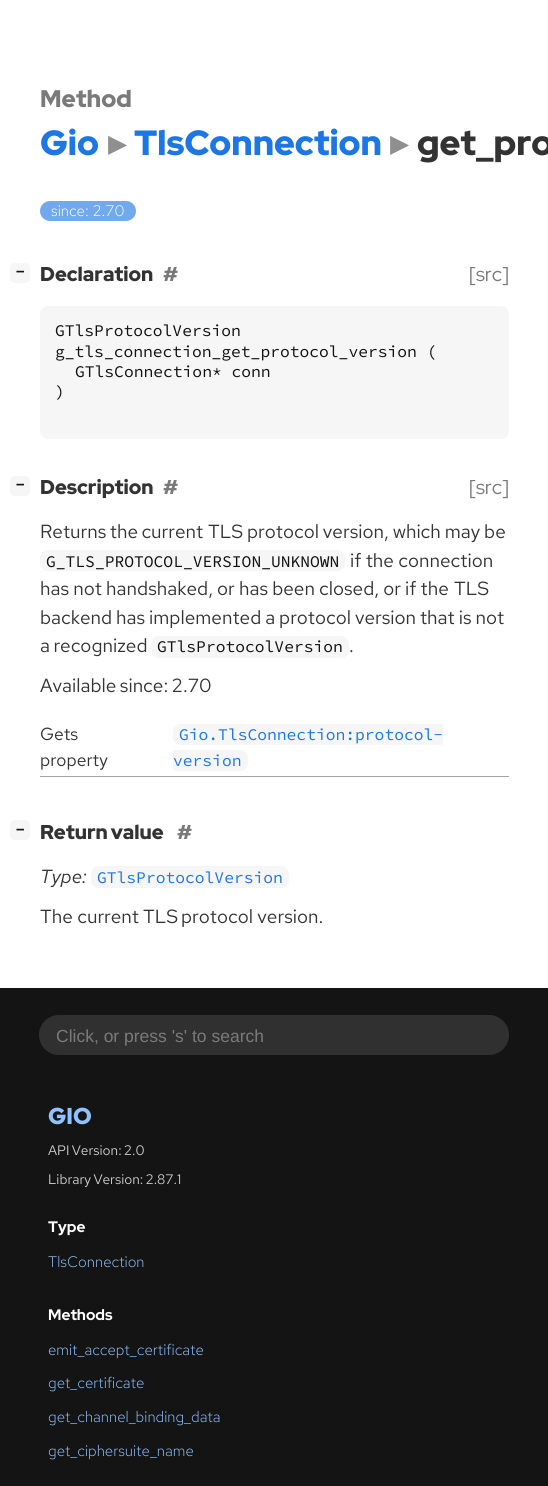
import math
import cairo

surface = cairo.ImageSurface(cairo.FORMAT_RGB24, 548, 1486)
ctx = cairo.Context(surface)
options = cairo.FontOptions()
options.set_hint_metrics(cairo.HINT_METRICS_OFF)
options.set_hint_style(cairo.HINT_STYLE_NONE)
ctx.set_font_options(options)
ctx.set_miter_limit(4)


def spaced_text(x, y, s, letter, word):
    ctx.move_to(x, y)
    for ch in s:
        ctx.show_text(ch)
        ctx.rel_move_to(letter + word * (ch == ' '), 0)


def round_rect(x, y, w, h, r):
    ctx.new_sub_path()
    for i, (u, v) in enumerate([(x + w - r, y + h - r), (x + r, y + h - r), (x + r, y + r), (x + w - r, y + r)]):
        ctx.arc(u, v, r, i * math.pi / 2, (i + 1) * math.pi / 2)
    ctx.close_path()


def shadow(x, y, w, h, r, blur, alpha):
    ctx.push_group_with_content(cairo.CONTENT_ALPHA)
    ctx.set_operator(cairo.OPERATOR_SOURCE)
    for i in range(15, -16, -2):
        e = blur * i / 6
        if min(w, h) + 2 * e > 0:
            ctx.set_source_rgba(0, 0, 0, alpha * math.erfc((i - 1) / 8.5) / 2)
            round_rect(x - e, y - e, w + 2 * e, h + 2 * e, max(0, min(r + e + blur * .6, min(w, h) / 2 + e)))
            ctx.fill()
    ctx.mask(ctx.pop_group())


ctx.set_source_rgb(1, 1, 1)
ctx.paint()
ctx.save()
ctx.set_fill_rule(cairo.FILL_RULE_EVEN_ODD)
ctx.new_path()
ctx.move_to(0, 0)
ctx.line_to(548, 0)
ctx.line_to(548, 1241)
ctx.line_to(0, 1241)
ctx.close_path()
ctx.move_to(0, 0)
ctx.line_to(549, 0)
ctx.line_to(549, 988)
ctx.line_to(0, 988)
ctx.close_path()
ctx.clip()
ctx.set_source_rgb(0, 0, 0)
shadow(0, 0, 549, 988, 0, 84, 0.1)
ctx.restore()
ctx.select_font_face("Red Hat Display Black")
ctx.set_font_size(24)
ctx.set_source_rgb(0.478, 0.478, 0.478)
ctx.move_to(40, 107)
ctx.show_text("Method")
ctx.set_font_size(35)
ctx.set_source_rgb(0.11, 0.463, 0.894)
ctx.move_to(40, 155)
ctx.show_text("Gio")
ctx.select_font_face("DejaVu Sans", cairo.FONT_SLANT_NORMAL, cairo.FONT_WEIGHT_BOLD)
ctx.set_source_rgb(0.561, 0.561, 0.561)
ctx.move_to(108, 155)
ctx.show_text("▸")
ctx.select_font_face("Red Hat Display Black")
ctx.set_source_rgb(0.11, 0.463, 0.894)
ctx.move_to(134, 155)
ctx.show_text("TlsConnection")
ctx.select_font_face("DejaVu Sans", cairo.FONT_SLANT_NORMAL, cairo.FONT_WEIGHT_BOLD)
ctx.set_source_rgb(0.561, 0.561, 0.561)
ctx.move_to(390, 155)
ctx.show_text("▸")
ctx.select_font_face("Red Hat Display Black")
ctx.set_source_rgb(0.2, 0.2, 0.2)
ctx.move_to(417, 155)
ctx.show_text("get_pro")
ctx.set_source_rgb(0.447, 0.663, 0.925)
round_rect(40, 201, 96, 20, 10)
ctx.fill()
ctx.select_font_face("Red Hat Text Light")
ctx.set_font_size(15.25)
ctx.set_source_rgb(1, 1, 1)
ctx.move_to(51, 216)
ctx.show_text("since: 2.70")
ctx.set_source_rgb(0.961, 0.961, 0.961)
round_rect(10, 263, 20, 20, 5)
ctx.fill()
ctx.select_font_face("DejaVu Sans Mono", cairo.FONT_SLANT_NORMAL, cairo.FONT_WEIGHT_BOLD)
ctx.set_font_size(14)
ctx.set_source_rgb(0.067, 0.067, 0.067)
ctx.move_to(16, 276)
ctx.show_text("−")
ctx.select_font_face("Red Hat Display Black")
ctx.set_font_size(20)
ctx.set_source_rgb(0.2, 0.2, 0.2)
ctx.move_to(40, 281)
ctx.show_text("Declaration")
ctx.set_source_rgb(0.478, 0.478, 0.478)
ctx.move_to(163, 281)
ctx.show_text("#")
ctx.select_font_face("Red Hat Display")
ctx.move_to(469, 281)
ctx.show_text("[src]")
ctx.set_source_rgb(0.961, 0.961, 0.961)
round_rect(40, 306, 469, 133, 8)
ctx.fill()
ctx.select_font_face("Source Code Pro")
ctx.set_font_size(16.3)
ctx.set_source_rgb(0.067, 0.067, 0.067)
ctx.move_to(55, 336)
ctx.show_text("GTlsProtocolVersion")
ctx.move_to(55, 357)
ctx.show_text("g_tls_connection_get_protocol_version (")
ctx.move_to(75, 377)
ctx.show_text("GTlsConnection* conn")
ctx.move_to(55, 397)
ctx.show_text(")")
ctx.set_source_rgb(0.961, 0.961, 0.961)
round_rect(10, 476, 20, 20, 5)
ctx.fill()
ctx.select_font_face("DejaVu Sans Mono", cairo.FONT_SLANT_NORMAL, cairo.FONT_WEIGHT_BOLD)
ctx.set_font_size(14)
ctx.set_source_rgb(0.067, 0.067, 0.067)
ctx.move_to(16, 489)
ctx.show_text("−")
ctx.select_font_face("Red Hat Display Black")
ctx.set_font_size(20)
ctx.set_source_rgb(0.2, 0.2, 0.2)
ctx.move_to(40, 494)
ctx.show_text("Description")
ctx.set_source_rgb(0.478, 0.478, 0.478)
ctx.move_to(163, 494)
ctx.show_text("#")
ctx.select_font_face("Red Hat Display")
ctx.move_to(469, 494)
ctx.show_text("[src]")
ctx.select_font_face("Red Hat Text")
ctx.set_font_size(19)
ctx.set_source_rgb(0.2, 0.2, 0.2)
spaced_text(40, 538, "Returns the current", 0, -1)
ctx.move_to(208, 538)
ctx.show_text("TLS")
spaced_text(247, 538, "protocol version, which may be", 0, -0.5)
ctx.set_source_rgb(0.961, 0.961, 0.961)
round_rect(40, 550, 305, 21, 8)
ctx.fill()
ctx.select_font_face("Source Code Pro")
ctx.set_font_size(16.3)
ctx.set_source_rgb(0.067, 0.067, 0.067)
ctx.move_to(46, 567)
ctx.show_text("G_TLS_PROTOCOL_VERSION_UNKNOWN")
ctx.select_font_face("Red Hat Text")
ctx.set_font_size(19)
ctx.set_source_rgb(0.2, 0.2, 0.2)
ctx.move_to(350, 567)
ctx.show_text("if the connection")
spaced_text(40, 595, "has not handshaked, or has been closed, or if the", 0, -0.25)
ctx.move_to(454, 595)
ctx.show_text("TLS")
spaced_text(40, 624, "backend has implemented a protocol version that is not", 0, -0.5)
spaced_text(40, 652, "a recognized", 0, -1)
ctx.set_source_rgb(0.961, 0.961, 0.961)
round_rect(151, 636, 198, 22, 8)
ctx.fill()
ctx.select_font_face("Source Code Pro")
ctx.set_font_size(16.3)
ctx.set_source_rgb(0.067, 0.067, 0.067)
ctx.move_to(157, 652)
ctx.show_text("GTlsProtocolVersion")
ctx.select_font_face("Red Hat Text")
ctx.set_font_size(19)
ctx.set_source_rgb(0.2, 0.2, 0.2)
ctx.move_to(349, 652)
ctx.show_text(".")
spaced_text(40, 692, "Available since: 2.70", 0, -1)
ctx.set_source_rgb(0.651, 0.651, 0.651)
ctx.rectangle(40, 776, 469, 1)
ctx.fill()
ctx.set_font_size(17.5)
ctx.set_source_rgb(0.2, 0.2, 0.2)
ctx.move_to(40, 740)
ctx.show_text("Gets")
ctx.move_to(40, 766)
ctx.show_text("property")
ctx.set_source_rgb(0.961, 0.961, 0.961)
ctx.new_path()
ctx.move_to(181, 724)
ctx.line_to(443, 724)
ctx.line_to(443, 745)
ctx.line_to(181, 745)
ctx.curve_to(176.5, 745, 173, 741.5, 173, 737)
ctx.line_to(173, 732)
ctx.curve_to(173, 727.5, 176.5, 724, 181, 724)
ctx.close_path()
ctx.fill()
ctx.select_font_face("Source Code Pro")
ctx.set_font_size(16.3)
ctx.set_source_rgb(0.11, 0.463, 0.894)
ctx.move_to(179, 740)
ctx.show_text("Gio.TlsConnection:protocol-")
ctx.set_source_rgb(0.961, 0.961, 0.961)
ctx.new_path()
ctx.move_to(173, 750)
ctx.line_to(240, 750)
ctx.curve_to(244.5, 750, 248, 753.5, 248, 758)
ctx.line_to(248, 763)
ctx.curve_to(248, 767.5, 244.5, 771, 240, 771)
ctx.line_to(173, 771)
ctx.close_path()
ctx.fill()
ctx.set_source_rgb(0.11, 0.463, 0.894)
ctx.move_to(173, 766)
ctx.show_text("version")
ctx.set_source_rgb(0.961, 0.961, 0.961)
round_rect(10, 820, 20, 20, 5)
ctx.fill()
ctx.select_font_face("DejaVu Sans Mono", cairo.FONT_SLANT_NORMAL, cairo.FONT_WEIGHT_BOLD)
ctx.set_font_size(14)
ctx.set_source_rgb(0.067, 0.067, 0.067)
ctx.move_to(16, 834)
ctx.show_text("−")
ctx.select_font_face("Red Hat Display Black")
ctx.set_font_size(20)
ctx.set_source_rgb(0.2, 0.2, 0.2)
spaced_text(40, 839, "Return value", 0, -1)
ctx.set_source_rgb(0.478, 0.478, 0.478)
ctx.move_to(177, 839)
ctx.show_text("#")
ctx.select_font_face("Red Hat Text", cairo.FONT_SLANT_ITALIC)
ctx.set_font_size(19)
ctx.set_source_rgb(0.2, 0.2, 0.2)
ctx.move_to(40, 883)
ctx.show_text("Type:")
ctx.set_source_rgb(0.961, 0.961, 0.961)
round_rect(91, 866, 198, 22, 8)
ctx.fill()
ctx.select_font_face("Source Code Pro")
ctx.set_font_size(16.3)
ctx.set_source_rgb(0.11, 0.463, 0.894)
ctx.move_to(97, 883)
ctx.show_text("GTlsProtocolVersion")
ctx.select_font_face("Red Hat Text")
ctx.set_font_size(19)
ctx.set_source_rgb(0.2, 0.2, 0.2)
ctx.move_to(40, 923)
ctx.show_text("The current")
ctx.move_to(143, 923)
ctx.show_text("TLS")
ctx.move_to(181, 923)
ctx.show_text("protocol version.")
ctx.set_source_rgb(0.082, 0.082, 0.082)
ctx.rectangle(0, 988, 548, 498)
ctx.fill()
ctx.set_source_rgb(0.188, 0.188, 0.188)
round_rect(39, 1015, 470, 40, 20)
ctx.fill()
ctx.select_font_face("Liberation Sans")
ctx.set_font_size(17.5)
ctx.set_source_rgb(0.478, 0.478, 0.478)
ctx.move_to(56, 1042)
ctx.show_text("Click, or press 's' to search")
ctx.select_font_face("Red Hat Display Black")
ctx.set_font_size(23)
ctx.set_source_rgb(0.565, 0.761, 1)
ctx.move_to(48, 1124)
ctx.show_text("GIO")
ctx.select_font_face("Red Hat Text")
ctx.set_font_size(13.75)
ctx.set_source_rgb(0.8, 0.8, 0.8)
spaced_text(48, 1155, "API Version: 2.0", 0, -1)
spaced_text(48, 1184, "Library Version: 2.87.1", 0, -1)
ctx.select_font_face("Red Hat Display ExtraBold")
ctx.set_font_size(15.25)
ctx.set_source_rgb(1, 1, 1)
ctx.move_to(48, 1232)
ctx.show_text("Type")
ctx.select_font_face("Red Hat Text Light")
ctx.set_source_rgb(0.565, 0.761, 1)
ctx.move_to(48, 1267)
ctx.show_text("TlsConnection")
ctx.select_font_face("Red Hat Display ExtraBold")
ctx.set_source_rgb(1, 1, 1)
ctx.move_to(48, 1320)
ctx.show_text("Methods")
ctx.select_font_face("Red Hat Text Light")
ctx.set_source_rgb(0.565, 0.761, 1)
ctx.move_to(48, 1355)
ctx.show_text("emit_accept_certificate")
ctx.move_to(48, 1388)
ctx.show_text("get_certificate")
ctx.move_to(48, 1422)
ctx.show_text("get_channel_binding_data")
ctx.move_to(48, 1456)
ctx.show_text("get_ciphersuite_name")
surface.write_to_png("page.png")
